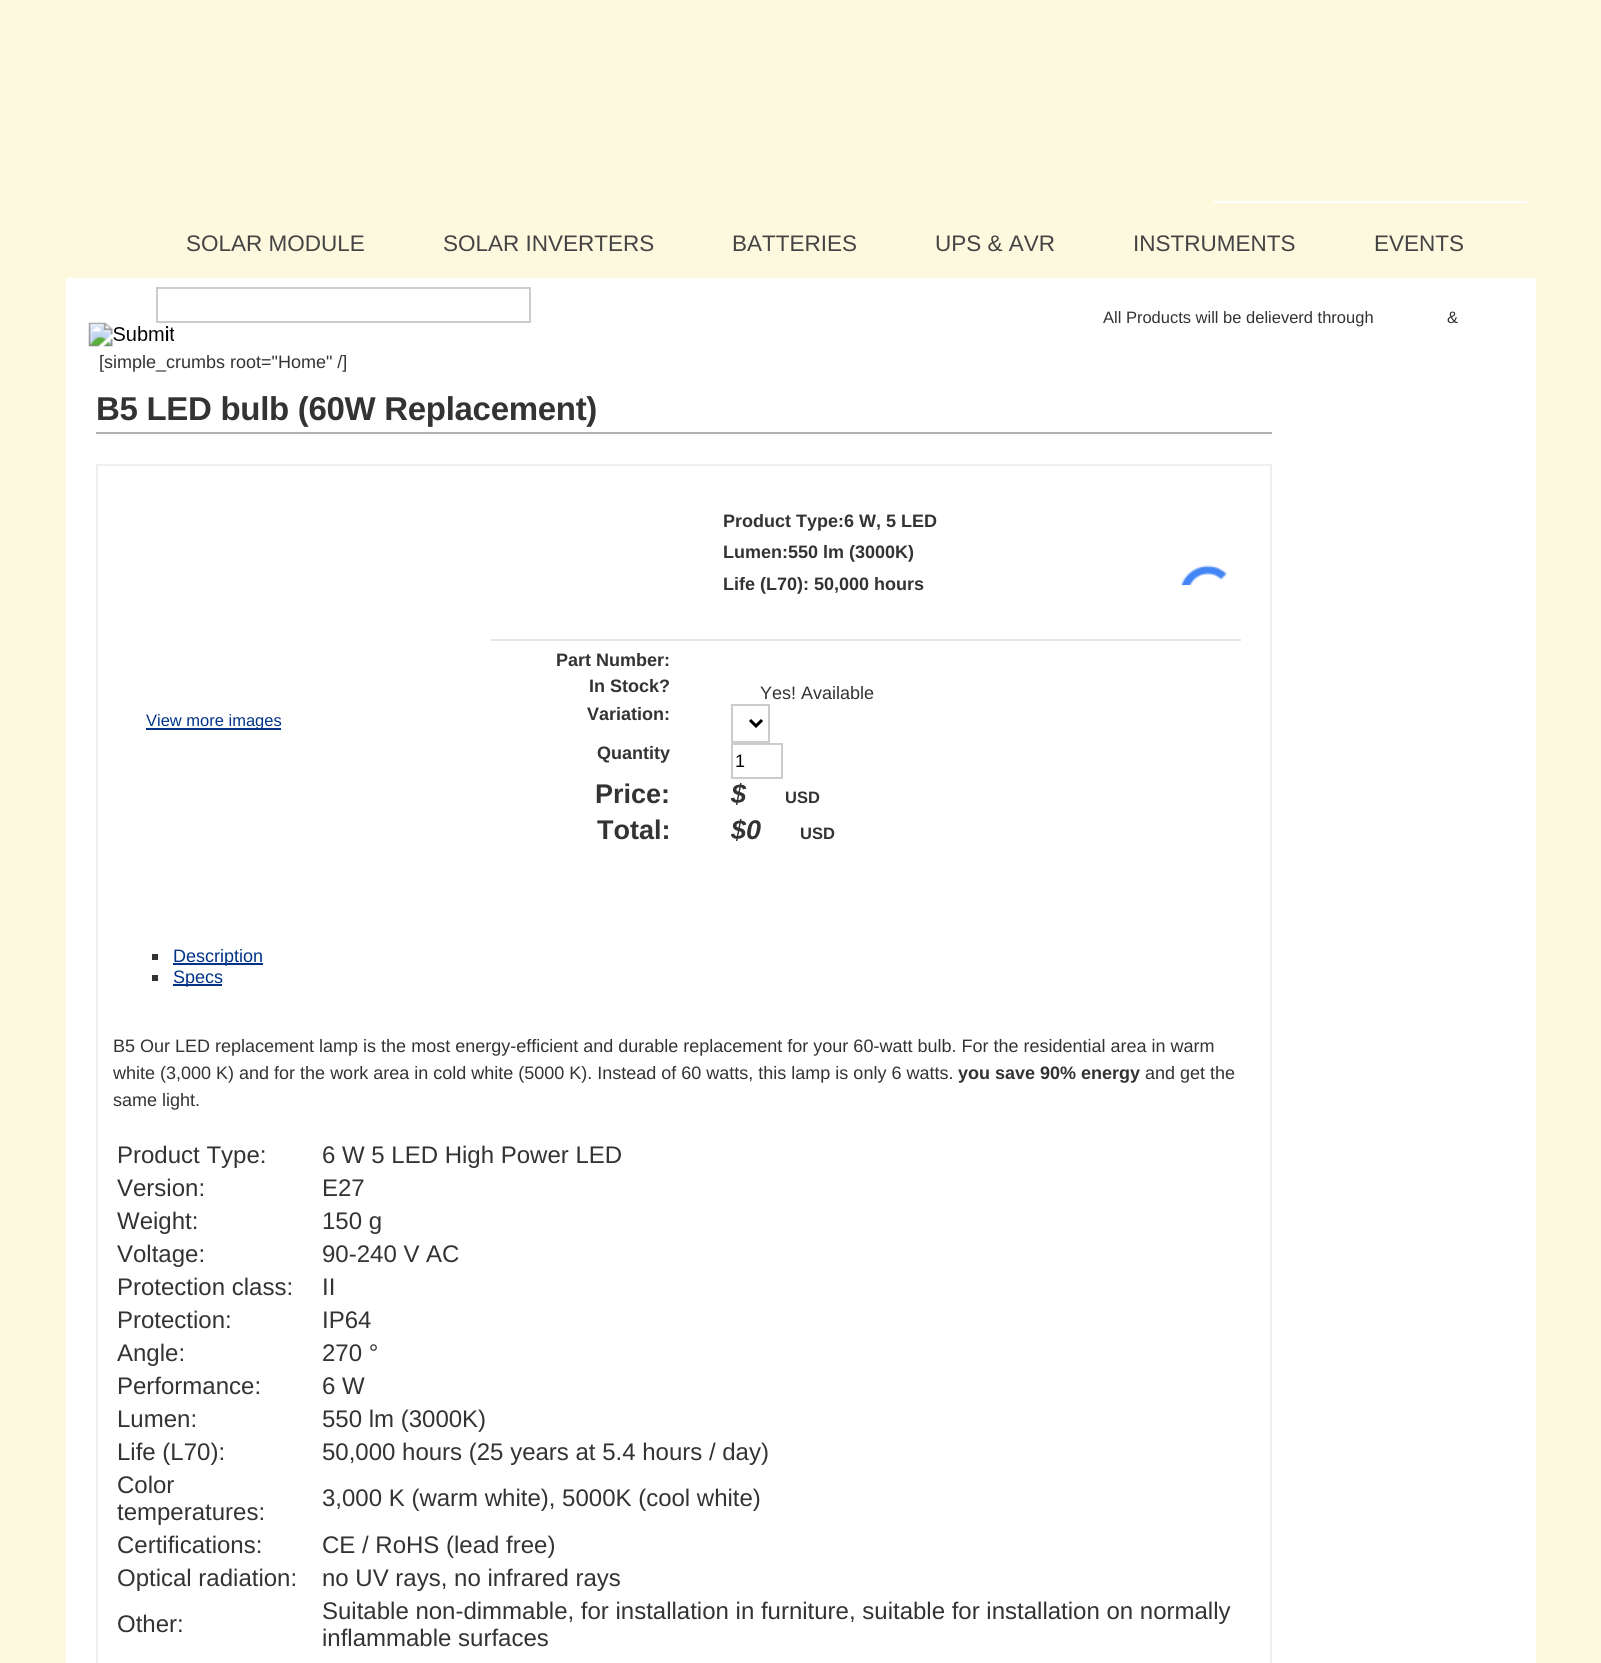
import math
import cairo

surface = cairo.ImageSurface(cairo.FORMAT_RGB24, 1601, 1663)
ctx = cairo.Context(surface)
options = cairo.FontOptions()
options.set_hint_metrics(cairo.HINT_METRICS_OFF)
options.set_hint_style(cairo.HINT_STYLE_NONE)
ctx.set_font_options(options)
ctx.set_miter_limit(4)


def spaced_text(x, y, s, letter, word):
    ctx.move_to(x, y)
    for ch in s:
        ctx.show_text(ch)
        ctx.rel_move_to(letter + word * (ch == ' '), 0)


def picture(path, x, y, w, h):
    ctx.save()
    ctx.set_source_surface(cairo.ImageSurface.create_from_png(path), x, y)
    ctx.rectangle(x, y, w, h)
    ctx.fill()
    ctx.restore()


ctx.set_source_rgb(0.988, 0.973, 0.875)
ctx.paint()
ctx.set_source_rgb(1, 1, 1)
ctx.rectangle(1214, 201, 313, 2)
ctx.fill()
ctx.select_font_face("Liberation Sans")
ctx.set_font_size(22.5)
ctx.set_source_rgb(0.267, 0.267, 0.267)
ctx.move_to(186, 251)
ctx.show_text("SOLAR MODULE")
ctx.move_to(443, 251)
ctx.show_text("SOLAR INVERTERS")
ctx.move_to(732, 251)
ctx.show_text("BATTERIES")
ctx.move_to(935, 251)
ctx.show_text("UPS & AVR")
ctx.move_to(1133, 251)
ctx.show_text("INSTRUMENTS")
ctx.move_to(1374, 251)
ctx.show_text("EVENTS")
ctx.set_source_rgb(1, 1, 1)
ctx.rectangle(66, 278, 1470, 1385)
ctx.fill()
ctx.set_font_size(16.5)
ctx.set_source_rgb(0.2, 0.2, 0.2)
ctx.move_to(1103, 323)
ctx.show_text("All Products will be delieverd through")
ctx.move_to(1447, 323)
ctx.show_text("&")
ctx.rectangle(157, 288, 373, 34)
ctx.set_source_rgb(0.8, 0.8, 0.8)
ctx.stroke()
picture("img1.png", 88, 322, 86, 25)
ctx.set_font_size(20)
ctx.set_source_rgb(0, 0, 0)
ctx.move_to(165, 341)
ctx.show_text("i")
ctx.set_font_size(18)
ctx.set_source_rgb(0.2, 0.2, 0.2)
ctx.move_to(99, 368)
ctx.show_text("[simple_crumbs root=\"Home\" /]")
ctx.set_source_rgb(0.686, 0.694, 0.69)
ctx.rectangle(96, 432, 1176, 2)
ctx.fill()
ctx.select_font_face("Liberation Sans", cairo.FONT_SLANT_NORMAL, cairo.FONT_WEIGHT_BOLD)
ctx.set_font_size(33)
ctx.set_source_rgb(0.2, 0.2, 0.2)
spaced_text(96, 420, "B5 LED bulb (60W Replacement)", -0.3, 0)
ctx.rectangle(97, 465, 1174, 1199)
ctx.set_source_rgb(0.933, 0.933, 0.933)
ctx.stroke()
ctx.set_source_rgb(0, 0.2, 0.533)
ctx.rectangle(146, 728, 135, 2)
ctx.fill()
ctx.select_font_face("Liberation Sans")
ctx.set_font_size(16.5)
ctx.move_to(146, 726)
ctx.show_text("View more images")
ctx.select_font_face("Liberation Sans", cairo.FONT_SLANT_NORMAL, cairo.FONT_WEIGHT_BOLD)
ctx.set_font_size(18)
ctx.set_source_rgb(0.2, 0.2, 0.2)
ctx.move_to(723, 527)
ctx.show_text("Product Type:6 W, 5 LED")
ctx.move_to(723, 558)
ctx.show_text("Lumen:550 lm (3000K)")
ctx.move_to(723, 590)
ctx.show_text("Life (L70): 50,000 hours")
picture("img2.png", 1180, 565, 48, 20)
ctx.set_source_rgb(0.902, 0.902, 0.902)
ctx.rectangle(491, 639, 750, 2)
ctx.fill()
ctx.set_source_rgb(0.2, 0.2, 0.2)
ctx.move_to(556, 666)
ctx.show_text("Part Number:")
ctx.move_to(589, 692)
ctx.show_text("In Stock?")
ctx.select_font_face("Liberation Sans")
ctx.move_to(760, 699)
ctx.show_text("Yes! Available")
ctx.select_font_face("Liberation Sans", cairo.FONT_SLANT_NORMAL, cairo.FONT_WEIGHT_BOLD)
ctx.move_to(587, 720)
ctx.show_text("Variation:")
ctx.rectangle(732, 705, 37, 37)
ctx.set_source_rgb(0.8, 0.8, 0.8)
ctx.stroke()
ctx.new_path()
ctx.move_to(750, 720)
ctx.line_to(756, 726)
ctx.line_to(762, 720)
ctx.set_source_rgb(0, 0, 0)
ctx.set_line_width(3)
ctx.stroke()
ctx.set_source_rgb(0.2, 0.2, 0.2)
ctx.move_to(597, 759)
ctx.show_text("Quantity")
ctx.rectangle(732, 744, 50, 34)
ctx.set_source_rgb(0.8, 0.8, 0.8)
ctx.set_line_width(2)
ctx.stroke()
ctx.select_font_face("Liberation Sans")
ctx.set_source_rgb(0, 0, 0)
ctx.move_to(735, 767)
ctx.show_text("1")
ctx.select_font_face("Liberation Sans", cairo.FONT_SLANT_NORMAL, cairo.FONT_WEIGHT_BOLD)
ctx.set_font_size(27)
ctx.set_source_rgb(0.2, 0.2, 0.2)
ctx.move_to(595, 803)
ctx.show_text("Price:")
ctx.select_font_face("Liberation Sans", cairo.FONT_SLANT_ITALIC, cairo.FONT_WEIGHT_BOLD)
ctx.move_to(731, 803)
ctx.show_text("$")
ctx.select_font_face("Liberation Sans", cairo.FONT_SLANT_NORMAL, cairo.FONT_WEIGHT_BOLD)
ctx.set_font_size(16.5)
ctx.move_to(785, 803)
ctx.show_text("USD")
ctx.set_font_size(27)
ctx.move_to(597, 839)
ctx.show_text("Total:")
ctx.select_font_face("Liberation Sans", cairo.FONT_SLANT_ITALIC, cairo.FONT_WEIGHT_BOLD)
ctx.move_to(731, 839)
ctx.show_text("$0")
ctx.select_font_face("Liberation Sans", cairo.FONT_SLANT_NORMAL, cairo.FONT_WEIGHT_BOLD)
ctx.set_font_size(16.5)
ctx.move_to(800, 839)
ctx.show_text("USD")
ctx.rectangle(152, 954, 6, 6)
ctx.fill()
ctx.set_source_rgb(0, 0.2, 0.533)
ctx.rectangle(173, 963, 90, 2)
ctx.fill()
ctx.select_font_face("Liberation Sans")
ctx.set_font_size(18)
ctx.move_to(173, 962)
ctx.show_text("Description")
ctx.set_source_rgb(0.2, 0.2, 0.2)
ctx.rectangle(152, 975, 6, 6)
ctx.fill()
ctx.set_source_rgb(0, 0.2, 0.533)
ctx.rectangle(173, 984, 49, 2)
ctx.fill()
ctx.move_to(173, 983)
ctx.show_text("Specs")
ctx.set_source_rgb(0.2, 0.2, 0.2)
ctx.move_to(113, 1052)
ctx.show_text("B5 Our LED replacement lamp is the most energy-efficient and durable replacement for your 60-watt bulb. For the residential area in warm")
ctx.move_to(113, 1079)
ctx.show_text("white (3,000 K) and for the work area in cold white (5000 K). Instead of 60 watts, this lamp is only 6 watts.")
ctx.select_font_face("Liberation Sans", cairo.FONT_SLANT_NORMAL, cairo.FONT_WEIGHT_BOLD)
ctx.move_to(958, 1079)
ctx.show_text("you save 90% energy")
ctx.select_font_face("Liberation Sans")
ctx.move_to(1145, 1079)
ctx.show_text("and get the")
ctx.move_to(113, 1106)
ctx.show_text("same light.")
ctx.set_font_size(24)
ctx.move_to(117, 1163)
ctx.show_text("Product Type:")
ctx.move_to(322, 1163)
ctx.show_text("6 W 5 LED High Power LED")
ctx.move_to(117, 1196)
ctx.show_text("Version:")
ctx.move_to(322, 1196)
ctx.show_text("E27")
ctx.move_to(117, 1229)
ctx.show_text("Weight:")
ctx.move_to(322, 1229)
ctx.show_text("150 g")
ctx.move_to(117, 1262)
ctx.show_text("Voltage:")
ctx.move_to(322, 1262)
ctx.show_text("90-240 V AC")
ctx.move_to(117, 1295)
ctx.show_text("Protection class:")
ctx.move_to(322, 1295)
ctx.show_text("II")
ctx.move_to(117, 1328)
ctx.show_text("Protection:")
ctx.move_to(322, 1328)
ctx.show_text("IP64")
ctx.move_to(117, 1361)
ctx.show_text("Angle:")
ctx.move_to(322, 1361)
ctx.show_text("270 °")
ctx.move_to(117, 1394)
ctx.show_text("Performance:")
ctx.move_to(322, 1394)
ctx.show_text("6 W")
ctx.move_to(117, 1427)
ctx.show_text("Lumen:")
ctx.move_to(322, 1427)
ctx.show_text("550 lm (3000K)")
ctx.move_to(117, 1460)
ctx.show_text("Life (L70):")
ctx.move_to(322, 1460)
ctx.show_text("50,000 hours (25 years at 5.4 hours / day)")
ctx.move_to(117, 1493)
ctx.show_text("Color")
ctx.move_to(117, 1520)
ctx.show_text("temperatures:")
ctx.move_to(322, 1506)
ctx.show_text("3,000 K (warm white), 5000K (cool white)")
ctx.move_to(117, 1553)
ctx.show_text("Certifications:")
ctx.move_to(322, 1553)
ctx.show_text("CE / RoHS (lead free)")
ctx.move_to(117, 1586)
ctx.show_text("Optical radiation:")
ctx.move_to(322, 1586)
ctx.show_text("no UV rays, no infrared rays")
ctx.move_to(117, 1632)
ctx.show_text("Other:")
ctx.move_to(322, 1619)
ctx.show_text("Suitable non-dimmable, for installation in furniture, suitable for installation on normally")
ctx.move_to(322, 1646)
ctx.show_text("inflammable surfaces")
surface.write_to_png("page.png")
